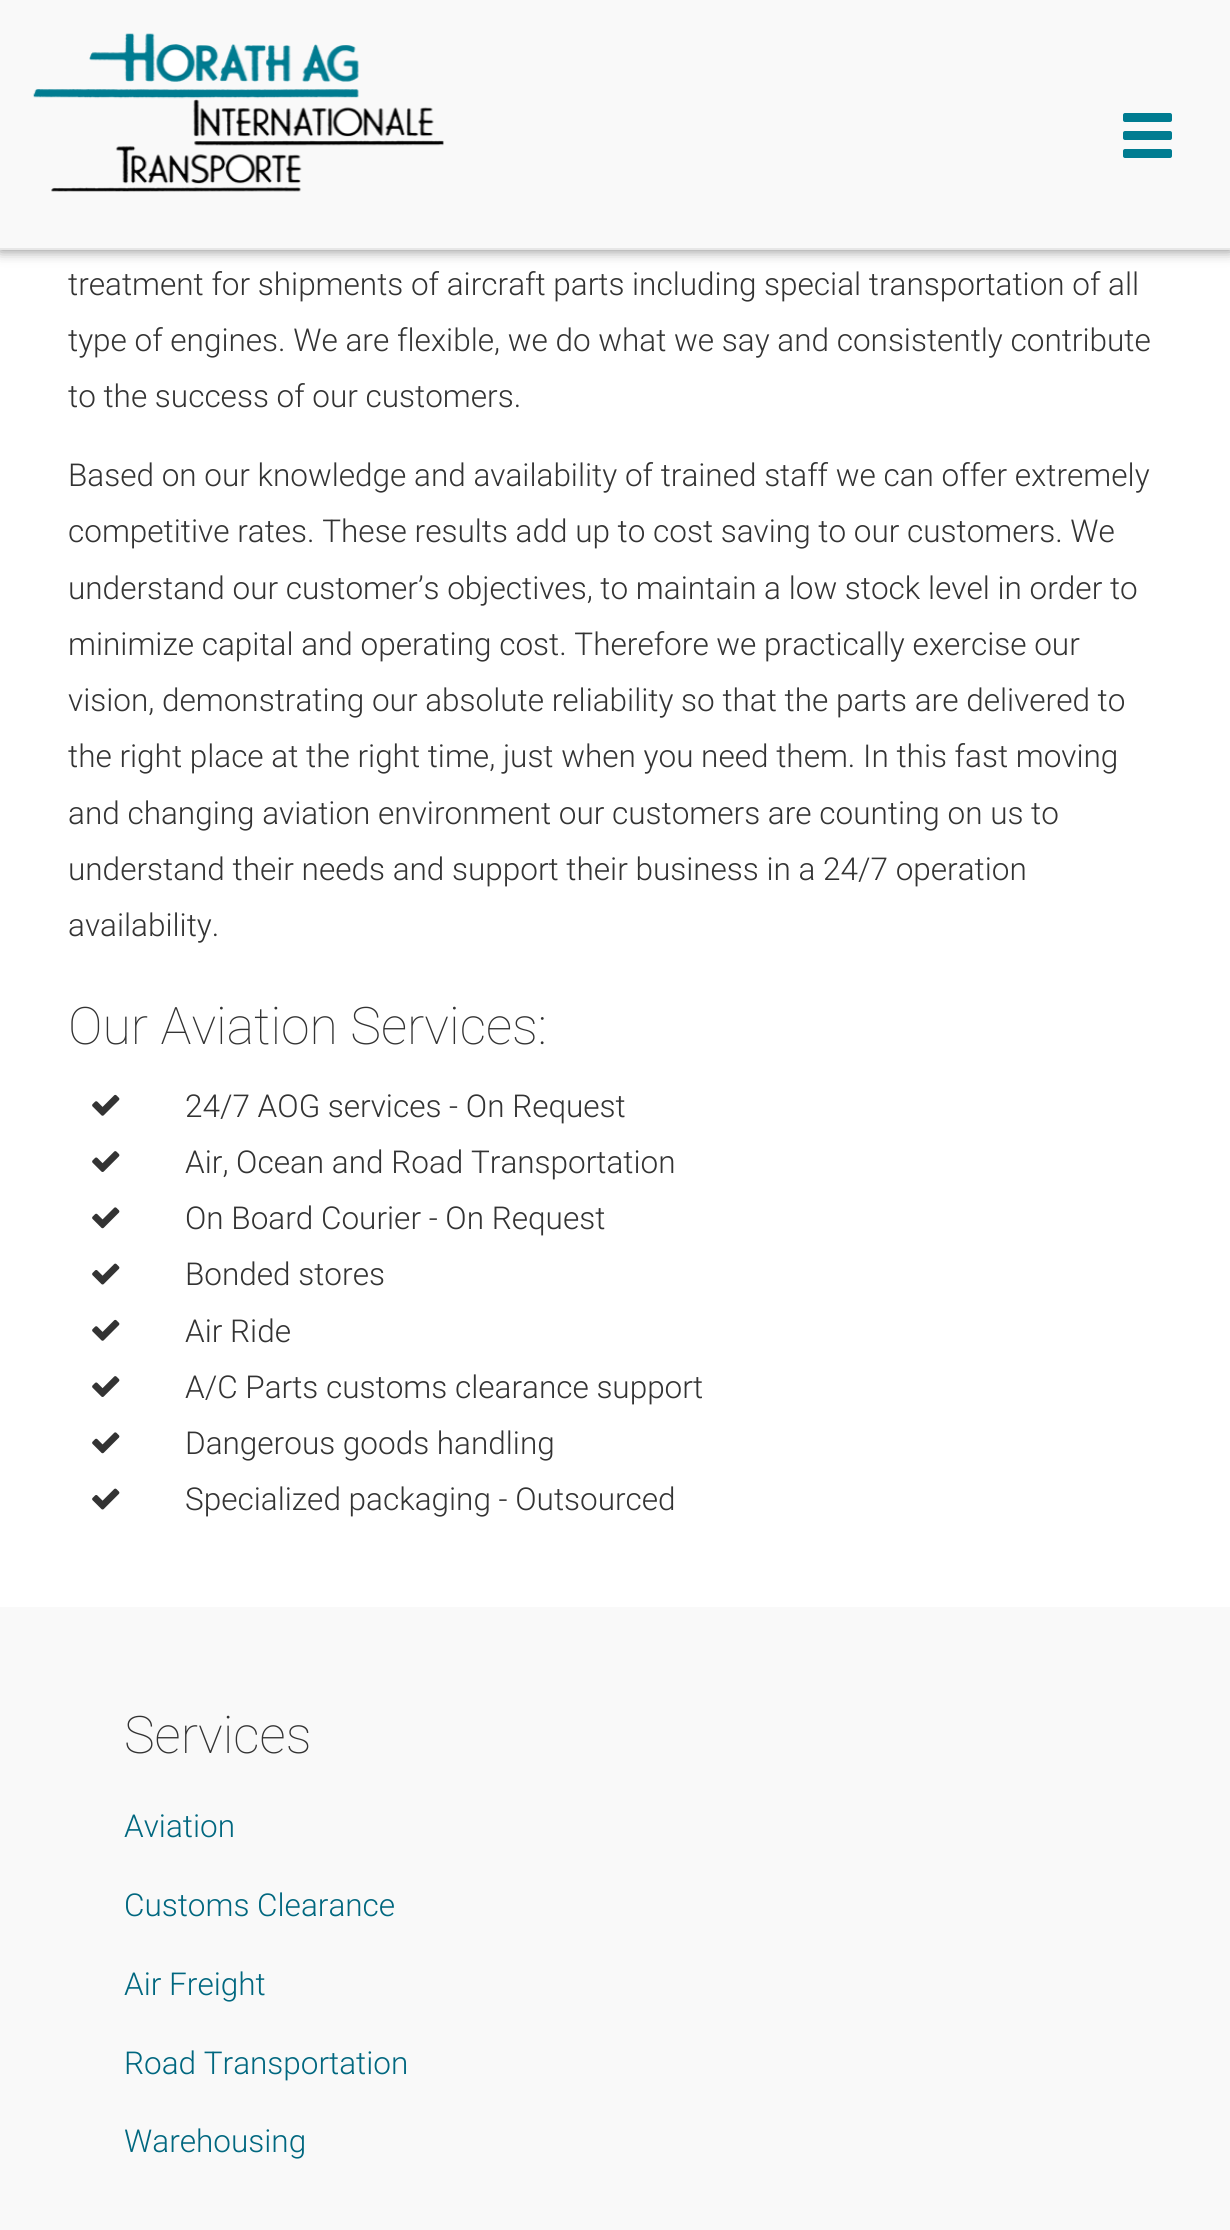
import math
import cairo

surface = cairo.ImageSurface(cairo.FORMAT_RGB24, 1230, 2230)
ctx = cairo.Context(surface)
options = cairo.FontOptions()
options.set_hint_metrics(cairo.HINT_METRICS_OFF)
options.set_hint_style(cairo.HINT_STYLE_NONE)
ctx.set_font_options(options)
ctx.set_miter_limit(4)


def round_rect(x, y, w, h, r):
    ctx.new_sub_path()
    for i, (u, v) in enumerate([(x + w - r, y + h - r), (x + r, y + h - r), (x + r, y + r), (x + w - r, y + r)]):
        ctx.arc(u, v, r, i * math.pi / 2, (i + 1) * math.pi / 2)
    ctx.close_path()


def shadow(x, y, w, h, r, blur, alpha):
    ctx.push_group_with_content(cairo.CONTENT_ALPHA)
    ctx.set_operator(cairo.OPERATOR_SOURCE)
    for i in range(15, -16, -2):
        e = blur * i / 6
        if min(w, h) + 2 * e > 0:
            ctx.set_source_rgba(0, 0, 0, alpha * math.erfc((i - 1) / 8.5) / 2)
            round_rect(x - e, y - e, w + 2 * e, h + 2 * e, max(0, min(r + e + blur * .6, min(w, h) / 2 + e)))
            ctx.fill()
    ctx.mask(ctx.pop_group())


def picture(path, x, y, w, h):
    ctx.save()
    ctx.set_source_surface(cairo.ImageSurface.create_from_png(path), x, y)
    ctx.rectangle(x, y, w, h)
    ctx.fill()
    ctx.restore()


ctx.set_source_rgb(1, 1, 1)
ctx.paint()
ctx.set_source_rgb(0, 0, 0)
shadow(0, 0, 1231, 250, 0, 7, 0.5)
ctx.set_source_rgb(0.973, 0.973, 0.973)
ctx.rectangle(0, 0, 1230, 248)
ctx.fill()
ctx.set_source_rgb(0.906, 0.906, 0.906)
ctx.rectangle(0, 248, 1230, 2)
ctx.fill()
picture("img1.png", 33, 33, 411, 159)
ctx.set_source_rgb(0, 0.486, 0.569)
round_rect(1123, 113, 49, 9, 2)
ctx.fill()
round_rect(1123, 131, 49, 9, 2)
ctx.fill()
round_rect(1123, 149, 49, 9, 2)
ctx.fill()
ctx.select_font_face("Roboto Light")
ctx.set_font_size(31.5)
ctx.set_source_rgb(0.2, 0.2, 0.2)
ctx.move_to(68, 295)
ctx.show_text("treatment for shipments of aircraft parts including special transportation of all")
ctx.move_to(68, 351)
ctx.show_text("type of engines. We are flexible, we do what we say and consistently contribute")
ctx.move_to(68, 407)
ctx.show_text("to the success of our customers.")
ctx.move_to(68, 486)
ctx.show_text("Based on our knowledge and availability of trained staff we can offer extremely")
ctx.move_to(68, 542)
ctx.show_text("competitive rates. These results add up to cost saving to our customers. We")
ctx.move_to(68, 599)
ctx.show_text("understand our customer’s objectives, to maintain a low stock level in order to")
ctx.move_to(68, 655)
ctx.show_text("minimize capital and operating cost. Therefore we practically exercise our")
ctx.move_to(68, 711)
ctx.show_text("vision, demonstrating our absolute reliability so that the parts are delivered to")
ctx.move_to(68, 767)
ctx.show_text("the right place at the right time, just when you need them. In this fast moving")
ctx.move_to(68, 824)
ctx.show_text("and changing aviation environment our customers are counting on us to")
ctx.move_to(68, 880)
ctx.show_text("understand their needs and support their business in a 24/7 operation")
ctx.move_to(68, 936)
ctx.show_text("availability.")
ctx.select_font_face("Roboto Thin")
ctx.set_font_size(51.75)
ctx.move_to(68, 1044)
ctx.show_text("Our Aviation Services:")
picture("img2.png", 92, 1094, 28, 22)
ctx.select_font_face("Roboto Light")
ctx.set_font_size(31.5)
ctx.move_to(185, 1117)
ctx.show_text("24/7 AOG services - On Request")
picture("img3.png", 92, 1151, 28, 21)
ctx.move_to(185, 1173)
ctx.show_text("Air, Ocean and Road Transportation")
picture("img4.png", 92, 1207, 28, 22)
ctx.move_to(185, 1229)
ctx.show_text("On Board Courier - On Request")
picture("img5.png", 92, 1263, 28, 22)
ctx.move_to(185, 1285)
ctx.show_text("Bonded stores")
picture("img2.png", 92, 1319, 28, 22)
ctx.move_to(185, 1342)
ctx.show_text("Air Ride")
picture("img3.png", 92, 1376, 28, 21)
ctx.move_to(185, 1398)
ctx.show_text("A/C Parts customs clearance support")
picture("img4.png", 92, 1432, 28, 22)
ctx.move_to(185, 1454)
ctx.show_text("Dangerous goods handling")
picture("img5.png", 92, 1488, 28, 22)
ctx.move_to(185, 1510)
ctx.show_text("Specialized packaging - Outsourced")
ctx.set_source_rgb(0.976, 0.976, 0.976)
ctx.rectangle(0, 1607, 1230, 623)
ctx.fill()
ctx.select_font_face("Roboto Thin")
ctx.set_font_size(51.75)
ctx.set_source_rgb(0.2, 0.2, 0.2)
ctx.move_to(124, 1753)
ctx.show_text("Services")
ctx.select_font_face("Roboto Light")
ctx.set_font_size(31.5)
ctx.set_source_rgb(0, 0.404, 0.498)
ctx.move_to(124, 1837)
ctx.show_text("Aviation")
ctx.move_to(124, 1916)
ctx.show_text("Customs Clearance")
ctx.move_to(124, 1995)
ctx.show_text("Air Freight")
ctx.move_to(124, 2074)
ctx.show_text("Road Transportation")
ctx.move_to(124, 2152)
ctx.show_text("Warehousing")
surface.write_to_png("page.png")
